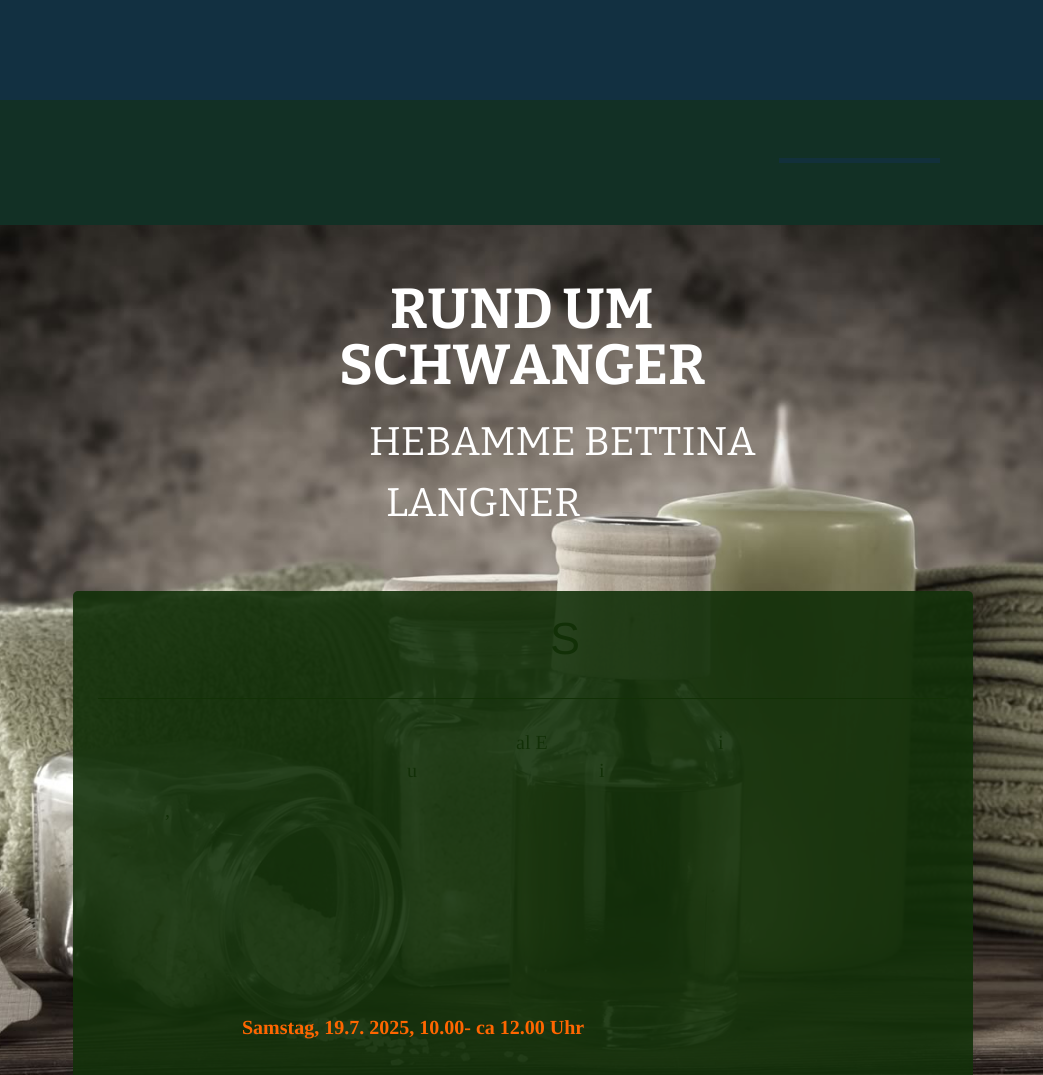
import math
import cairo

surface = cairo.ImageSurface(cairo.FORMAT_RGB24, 1043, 1075)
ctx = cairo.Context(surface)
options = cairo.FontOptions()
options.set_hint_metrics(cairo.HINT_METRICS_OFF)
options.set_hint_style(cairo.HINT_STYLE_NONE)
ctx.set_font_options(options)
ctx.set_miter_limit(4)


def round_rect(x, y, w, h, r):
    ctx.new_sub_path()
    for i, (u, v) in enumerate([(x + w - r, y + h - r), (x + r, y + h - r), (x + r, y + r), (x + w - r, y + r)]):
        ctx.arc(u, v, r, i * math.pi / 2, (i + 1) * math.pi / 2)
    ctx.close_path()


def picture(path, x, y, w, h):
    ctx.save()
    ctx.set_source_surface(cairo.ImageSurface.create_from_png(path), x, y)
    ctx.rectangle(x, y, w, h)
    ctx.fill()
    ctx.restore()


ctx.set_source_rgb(0.071, 0.188, 0.255)
ctx.paint()
ctx.set_source_rgb(0.071, 0.188, 0.145)
ctx.rectangle(0, 100, 1043, 125)
ctx.fill()
ctx.set_source_rgb(0.071, 0.188, 0.231)
ctx.rectangle(779, 158, 161, 5)
ctx.fill()
picture("img1.png", 0, 225, 1043, 850)
ctx.select_font_face("Bitter", cairo.FONT_SLANT_NORMAL, cairo.FONT_WEIGHT_BOLD)
ctx.set_font_size(56.25)
ctx.set_source_rgb(1, 1, 1)
ctx.move_to(390, 328)
ctx.show_text("RUND UM")
ctx.move_to(339, 384)
ctx.show_text("SCHWANGER")
ctx.select_font_face("Bitter")
ctx.set_font_size(40)
ctx.move_to(369, 455)
ctx.show_text("HEBAMME BETTINA")
ctx.move_to(386, 516)
ctx.show_text("LANGNER")
ctx.set_source_rgba(0.071, 0.188, 0.035, 0.9)
round_rect(73, 591, 900, 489, 5)
ctx.fill()
ctx.select_font_face("Liberation Sans")
ctx.set_font_size(45)
ctx.set_source_rgb(0.071, 0.188, 0.031)
ctx.move_to(550, 654)
ctx.show_text("S")
ctx.set_source_rgb(0.071, 0.188, 0.027)
ctx.rectangle(98, 698, 850, 1)
ctx.fill()
ctx.select_font_face("Liberation Serif")
ctx.set_font_size(20)
ctx.set_source_rgb(0.071, 0.188, 0.031)
ctx.move_to(516, 749)
ctx.show_text("al E")
ctx.move_to(718, 749)
ctx.show_text("i")
ctx.move_to(407, 777)
ctx.show_text("u")
ctx.move_to(599, 777)
ctx.show_text("i")
ctx.move_to(165, 817)
ctx.show_text(",")
ctx.select_font_face("Liberation Serif", cairo.FONT_SLANT_NORMAL, cairo.FONT_WEIGHT_BOLD)
ctx.set_source_rgb(1, 0.4, 0)
ctx.move_to(242, 1034)
ctx.show_text("Samstag, 19.7. 2025, 10.00- ca 12.00 Uhr")
surface.write_to_png("page.png")
